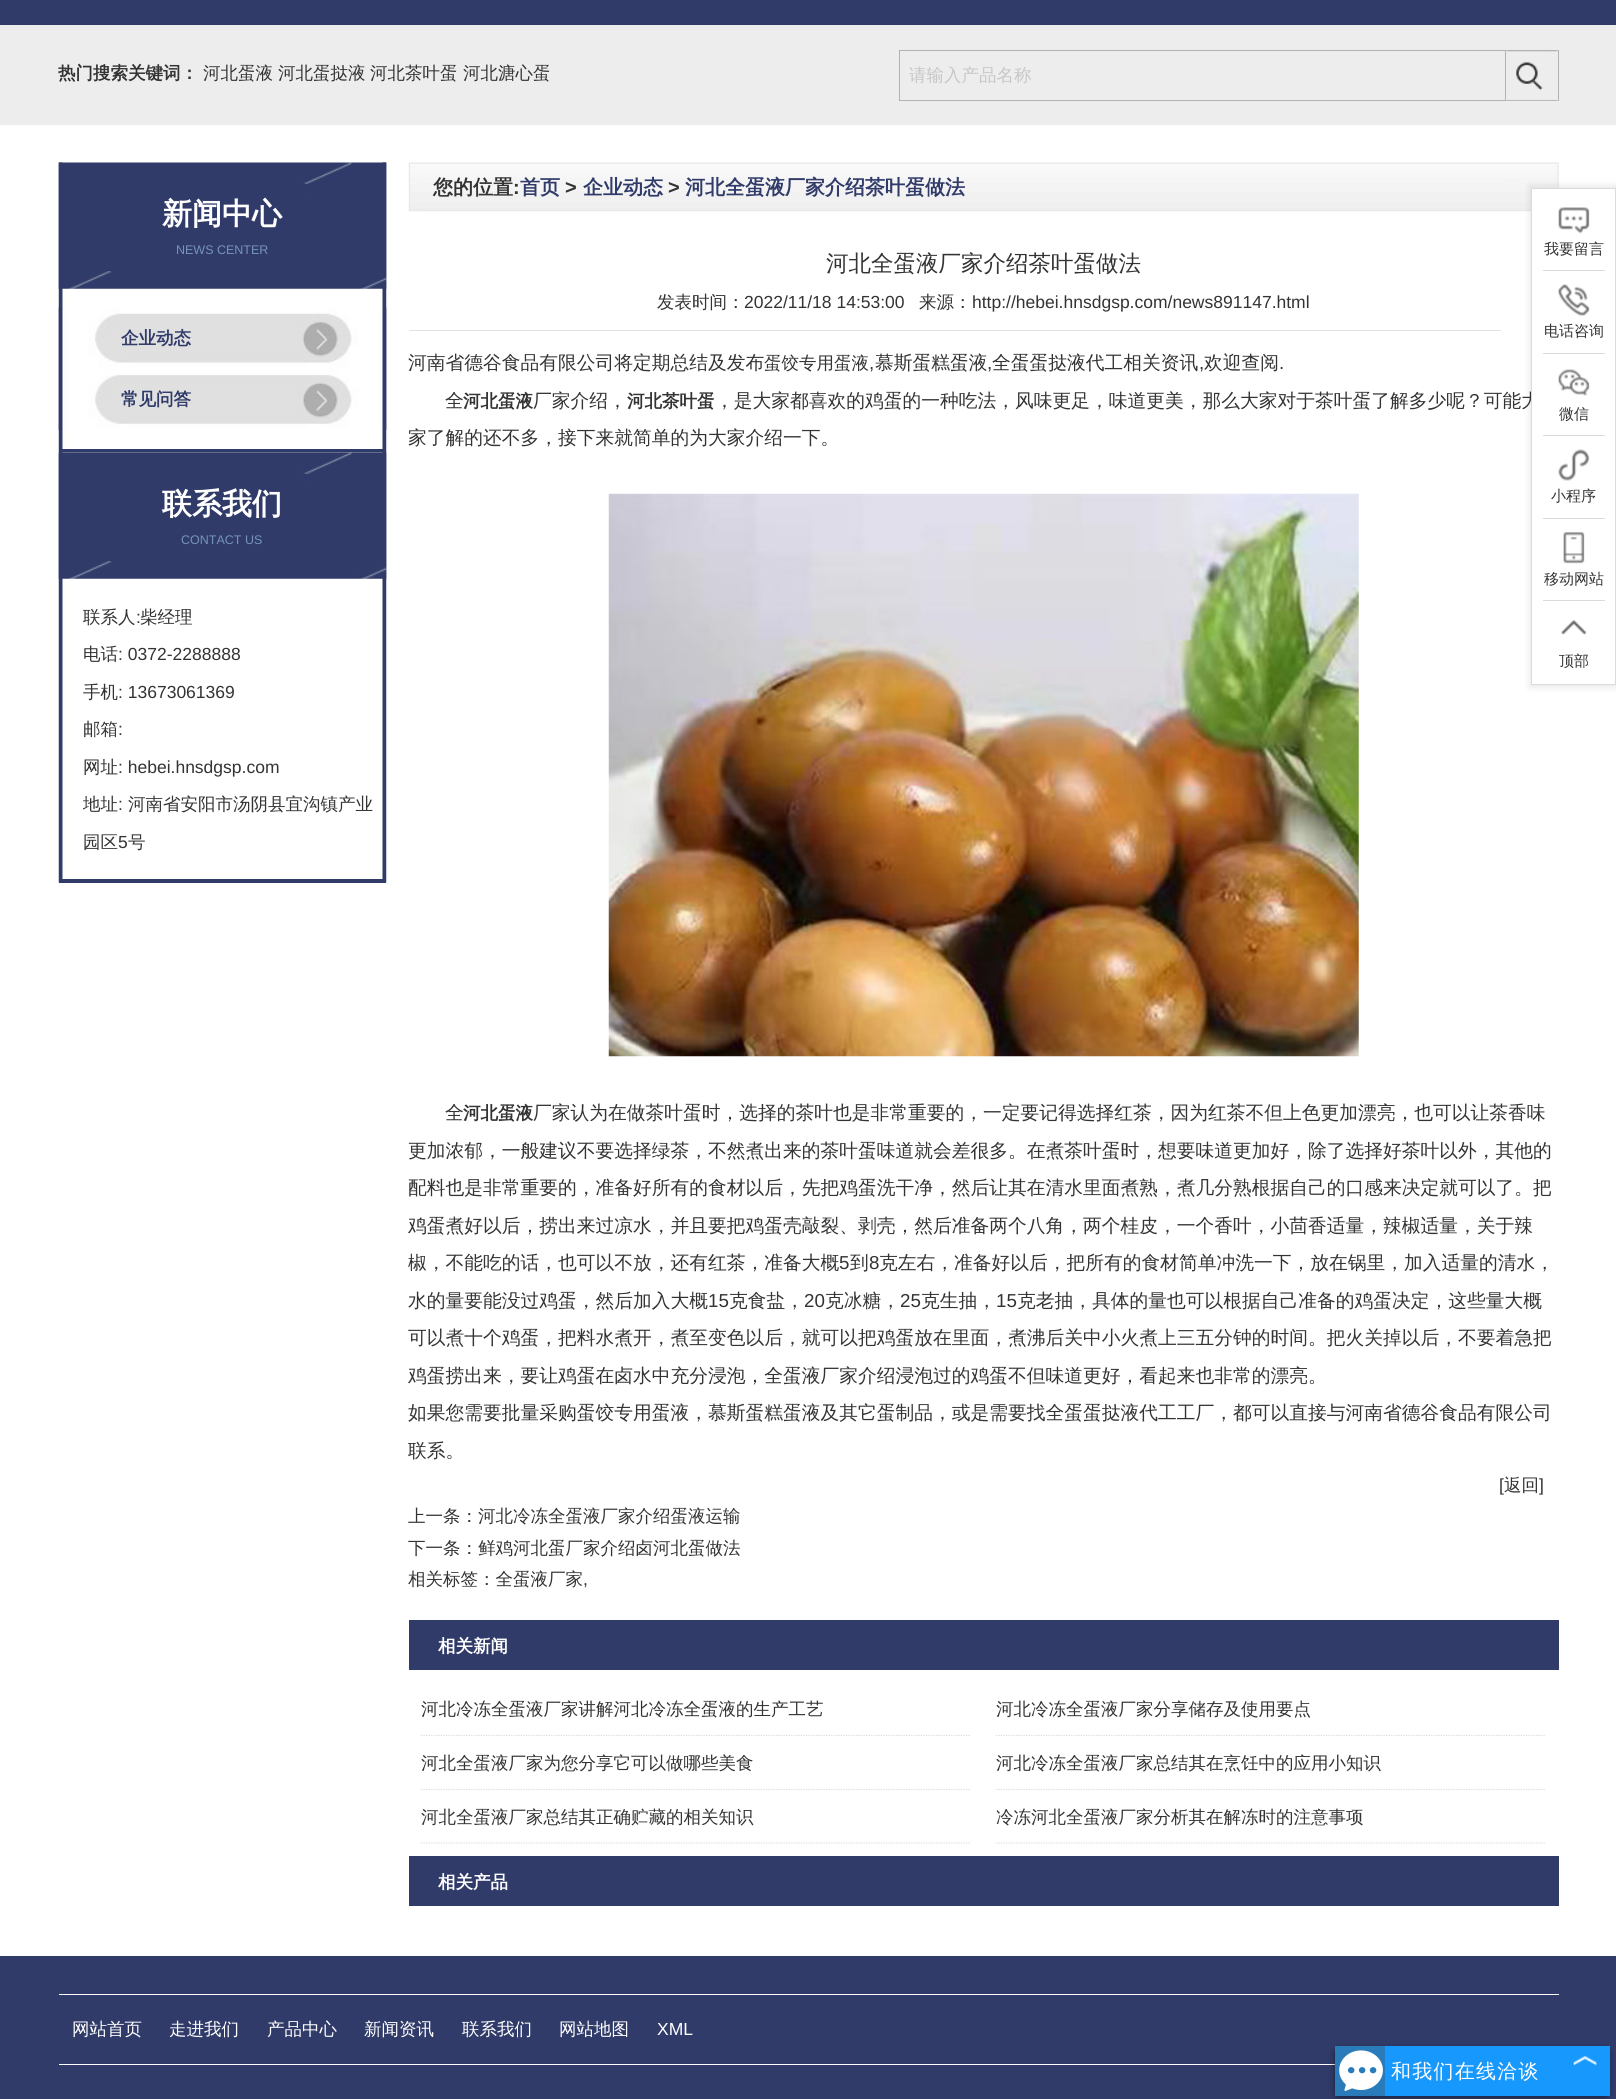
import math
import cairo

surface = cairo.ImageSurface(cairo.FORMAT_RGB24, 1616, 2099)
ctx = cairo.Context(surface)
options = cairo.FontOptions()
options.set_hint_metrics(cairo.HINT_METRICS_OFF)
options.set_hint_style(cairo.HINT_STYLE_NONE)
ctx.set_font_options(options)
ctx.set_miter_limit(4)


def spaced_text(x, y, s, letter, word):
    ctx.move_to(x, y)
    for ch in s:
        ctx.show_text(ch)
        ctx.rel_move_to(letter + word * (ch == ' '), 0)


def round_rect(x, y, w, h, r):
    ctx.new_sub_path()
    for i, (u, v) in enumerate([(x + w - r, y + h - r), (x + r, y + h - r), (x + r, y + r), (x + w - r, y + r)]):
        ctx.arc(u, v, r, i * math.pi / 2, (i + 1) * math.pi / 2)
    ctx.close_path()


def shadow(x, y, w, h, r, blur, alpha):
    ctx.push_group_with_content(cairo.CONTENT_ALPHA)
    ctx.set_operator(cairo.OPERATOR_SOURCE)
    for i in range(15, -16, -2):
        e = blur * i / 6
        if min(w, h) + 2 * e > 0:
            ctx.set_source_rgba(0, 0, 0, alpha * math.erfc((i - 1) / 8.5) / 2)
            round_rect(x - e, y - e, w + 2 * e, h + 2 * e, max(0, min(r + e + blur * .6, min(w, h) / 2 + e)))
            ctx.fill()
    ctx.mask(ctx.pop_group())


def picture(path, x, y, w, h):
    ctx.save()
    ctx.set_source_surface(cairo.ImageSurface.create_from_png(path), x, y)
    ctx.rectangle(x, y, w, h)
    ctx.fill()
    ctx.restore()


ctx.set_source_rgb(1, 1, 1)
ctx.paint()
ctx.set_source_rgb(0.188, 0.231, 0.412)
ctx.rectangle(0, 0, 1616, 25)
ctx.fill()
ctx.set_source_rgb(0.929, 0.929, 0.929)
ctx.rectangle(0, 25, 1616, 100)
ctx.fill()
ctx.select_font_face("WenQuanYi Zen Hei", cairo.FONT_SLANT_NORMAL, cairo.FONT_WEIGHT_BOLD)
ctx.set_font_size(17.5)
ctx.set_source_rgb(0.2, 0.2, 0.2)
ctx.move_to(58, 79)
ctx.show_text("热门搜索关键词：")
ctx.select_font_face("WenQuanYi Zen Hei Medium")
ctx.move_to(203, 79)
ctx.show_text("河北蛋液")
ctx.move_to(278, 79)
ctx.show_text("河北蛋挞液")
ctx.move_to(370, 79)
ctx.show_text("河北茶叶蛋")
ctx.move_to(463, 79)
ctx.show_text("河北溏心蛋")
ctx.rectangle(899.5, 50.5, 606, 50)
ctx.set_source_rgb(0.698, 0.698, 0.698)
ctx.set_line_width(1)
ctx.stroke()
ctx.set_source_rgb(0.78, 0.78, 0.78)
ctx.move_to(909, 81)
ctx.show_text("请输入产品名称")
ctx.set_source_rgb(0.698, 0.698, 0.698)
ctx.rectangle(1558, 50, 1, 51)
ctx.fill()
picture("img1.png", 1506, 50, 52, 51)
picture("img2.png", 58, 162, 329, 291)
ctx.set_source_rgb(0.188, 0.231, 0.412)
ctx.rectangle(59, 449, 327, 4)
ctx.fill()
picture("img3.png", 58, 162, 329, 127)
ctx.select_font_face("WenQuanYi Zen Hei", cairo.FONT_SLANT_NORMAL, cairo.FONT_WEIGHT_BOLD)
ctx.set_font_size(30)
ctx.set_source_rgb(1, 1, 1)
ctx.move_to(162, 224)
ctx.show_text("新闻中心")
ctx.select_font_face("Liberation Sans")
ctx.set_font_size(12.5)
ctx.set_source_rgb(0.455, 0.58, 0.722)
ctx.move_to(176, 254)
ctx.show_text("NEWS CENTER")
picture("img4.png", 58, 307, 329, 62)
ctx.select_font_face("WenQuanYi Zen Hei", cairo.FONT_SLANT_NORMAL, cairo.FONT_WEIGHT_BOLD)
ctx.set_font_size(17.5)
ctx.set_source_rgb(0.188, 0.231, 0.412)
ctx.move_to(121, 344)
ctx.show_text("企业动态")
picture("img5.png", 58, 368, 329, 62)
ctx.move_to(121, 405)
ctx.show_text("常见问答")
picture("img6.png", 58, 452, 329, 431)
ctx.rectangle(59, 879, 327, 4)
ctx.fill()
picture("img7.png", 58, 452, 329, 127)
ctx.set_font_size(30)
ctx.set_source_rgb(1, 1, 1)
ctx.move_to(162, 514)
ctx.show_text("联系我们")
ctx.select_font_face("Liberation Sans")
ctx.set_font_size(12.5)
ctx.set_source_rgb(0.455, 0.58, 0.722)
ctx.move_to(181, 544)
ctx.show_text("CONTACT US")
ctx.select_font_face("WenQuanYi Zen Hei Medium")
ctx.set_font_size(17.5)
ctx.set_source_rgb(0.2, 0.2, 0.2)
ctx.move_to(83, 623)
ctx.show_text("联系人")
ctx.select_font_face("Liberation Sans")
ctx.move_to(136, 623)
ctx.show_text(":")
ctx.select_font_face("WenQuanYi Zen Hei Medium")
ctx.move_to(140, 623)
ctx.show_text("柴经理")
ctx.move_to(83, 660)
ctx.show_text("电话")
ctx.select_font_face("Liberation Sans")
ctx.move_to(118, 660)
ctx.show_text(": 0372-2288888")
ctx.select_font_face("WenQuanYi Zen Hei Medium")
ctx.move_to(83, 698)
ctx.show_text("手机")
ctx.select_font_face("Liberation Sans")
ctx.move_to(118, 698)
ctx.show_text(": 13673061369")
ctx.select_font_face("WenQuanYi Zen Hei Medium")
ctx.move_to(83, 735)
ctx.show_text("邮箱")
ctx.select_font_face("Liberation Sans")
ctx.move_to(118, 735)
ctx.show_text(":")
ctx.select_font_face("WenQuanYi Zen Hei Medium")
ctx.move_to(83, 773)
ctx.show_text("网址")
ctx.select_font_face("Liberation Sans")
ctx.move_to(118, 773)
ctx.show_text(": hebei.hnsdgsp.com")
ctx.select_font_face("WenQuanYi Zen Hei Medium")
ctx.move_to(83, 810)
ctx.show_text("地址")
ctx.select_font_face("Liberation Sans")
ctx.move_to(118, 810)
ctx.show_text(":")
ctx.select_font_face("WenQuanYi Zen Hei Medium")
ctx.move_to(128, 810)
ctx.show_text("河南省安阳市汤阴县宜沟镇产业")
ctx.move_to(83, 848)
ctx.show_text("园区")
ctx.select_font_face("Liberation Sans")
ctx.move_to(118, 848)
ctx.show_text("5")
ctx.select_font_face("WenQuanYi Zen Hei Medium")
ctx.move_to(128, 848)
ctx.show_text("号")
picture("img8.png", 408, 162, 1151, 50)
ctx.select_font_face("WenQuanYi Zen Hei", cairo.FONT_SLANT_NORMAL, cairo.FONT_WEIGHT_BOLD)
ctx.set_font_size(20)
ctx.move_to(433, 194)
ctx.show_text("您的位置")
ctx.select_font_face("Liberation Sans", cairo.FONT_SLANT_NORMAL, cairo.FONT_WEIGHT_BOLD)
ctx.move_to(513, 194)
ctx.show_text(":")
ctx.select_font_face("WenQuanYi Zen Hei", cairo.FONT_SLANT_NORMAL, cairo.FONT_WEIGHT_BOLD)
ctx.set_source_rgb(0.188, 0.231, 0.412)
ctx.move_to(520, 194)
ctx.show_text("首页")
ctx.select_font_face("Liberation Sans", cairo.FONT_SLANT_NORMAL, cairo.FONT_WEIGHT_BOLD)
ctx.set_source_rgb(0.2, 0.2, 0.2)
ctx.move_to(565, 194)
ctx.show_text(">")
ctx.select_font_face("WenQuanYi Zen Hei", cairo.FONT_SLANT_NORMAL, cairo.FONT_WEIGHT_BOLD)
ctx.set_source_rgb(0.188, 0.231, 0.412)
ctx.move_to(583, 194)
ctx.show_text("企业动态")
ctx.select_font_face("Liberation Sans", cairo.FONT_SLANT_NORMAL, cairo.FONT_WEIGHT_BOLD)
ctx.set_source_rgb(0.2, 0.2, 0.2)
ctx.move_to(668, 194)
ctx.show_text(">")
ctx.select_font_face("WenQuanYi Zen Hei", cairo.FONT_SLANT_NORMAL, cairo.FONT_WEIGHT_BOLD)
ctx.set_source_rgb(0.188, 0.231, 0.412)
ctx.move_to(685, 194)
ctx.show_text("河北全蛋液厂家介绍茶叶蛋做法")
ctx.select_font_face("WenQuanYi Zen Hei Medium")
ctx.set_font_size(22.5)
ctx.set_source_rgb(0.2, 0.2, 0.2)
ctx.move_to(826, 271)
ctx.show_text("河北全蛋液厂家介绍茶叶蛋做法")
ctx.set_font_size(17.5)
ctx.move_to(657, 308)
ctx.show_text("发表时间：")
ctx.select_font_face("Liberation Sans")
ctx.move_to(744, 308)
ctx.show_text("2022/11/18 14:53:00")
ctx.select_font_face("WenQuanYi Zen Hei Medium")
ctx.move_to(919, 308)
ctx.show_text("来源：")
ctx.select_font_face("Liberation Sans")
ctx.move_to(972, 308)
ctx.show_text("http://hebei.hnsdgsp.com/news891147.html")
ctx.set_source_rgb(0.886, 0.886, 0.886)
ctx.rectangle(409, 330, 1092, 1)
ctx.fill()
ctx.select_font_face("WenQuanYi Zen Hei Medium")
ctx.set_font_size(18.75)
ctx.set_source_rgb(0.2, 0.2, 0.2)
ctx.move_to(408, 369)
ctx.show_text("河南省德谷食品有限公司将定期总结及发布")
ctx.set_font_size(17.5)
ctx.move_to(764, 369)
ctx.show_text("蛋饺专用蛋液")
ctx.select_font_face("Liberation Sans")
ctx.set_font_size(18.75)
ctx.move_to(869, 369)
ctx.show_text(",")
ctx.select_font_face("WenQuanYi Zen Hei Medium")
ctx.move_to(875, 369)
ctx.show_text("慕斯蛋糕蛋液")
ctx.select_font_face("Liberation Sans")
ctx.move_to(987, 369)
ctx.show_text(",")
ctx.select_font_face("WenQuanYi Zen Hei Medium")
ctx.move_to(992, 369)
ctx.show_text("全蛋蛋挞液代工相关资讯")
ctx.select_font_face("Liberation Sans")
ctx.move_to(1199, 369)
ctx.show_text(",")
ctx.select_font_face("WenQuanYi Zen Hei Medium")
ctx.move_to(1204, 369)
ctx.show_text("欢迎查阅")
ctx.select_font_face("Liberation Sans")
ctx.move_to(1279, 369)
ctx.show_text(".")
ctx.select_font_face("WenQuanYi Zen Hei Medium")
ctx.move_to(445, 407)
ctx.show_text("全")
ctx.select_font_face("WenQuanYi Zen Hei", cairo.FONT_SLANT_NORMAL, cairo.FONT_WEIGHT_BOLD)
ctx.set_font_size(17.5)
ctx.move_to(463, 407)
ctx.show_text("河北蛋液")
ctx.select_font_face("WenQuanYi Zen Hei Medium")
ctx.set_font_size(18.75)
ctx.move_to(533, 407)
ctx.show_text("厂家介绍，")
ctx.select_font_face("WenQuanYi Zen Hei", cairo.FONT_SLANT_NORMAL, cairo.FONT_WEIGHT_BOLD)
ctx.set_font_size(17.5)
ctx.move_to(627, 407)
ctx.show_text("河北茶叶蛋")
ctx.select_font_face("WenQuanYi Zen Hei Medium")
ctx.set_font_size(18.75)
ctx.move_to(715, 407)
ctx.show_text("，是大家都喜欢的鸡蛋的一种吃法，风味更足，味道更美，那么大家对于茶叶蛋了解多少呢？可能大")
ctx.move_to(408, 444)
ctx.show_text("家了解的还不多，接下来就简单的为大家介绍一下。")
picture("img9.png", 608, 493, 751, 564)
ctx.move_to(445, 1119)
ctx.show_text("全")
ctx.select_font_face("WenQuanYi Zen Hei", cairo.FONT_SLANT_NORMAL, cairo.FONT_WEIGHT_BOLD)
ctx.set_font_size(17.5)
ctx.move_to(463, 1119)
ctx.show_text("河北蛋液")
ctx.select_font_face("WenQuanYi Zen Hei Medium")
ctx.set_font_size(18.75)
ctx.move_to(533, 1119)
ctx.show_text("厂家认为在做茶叶蛋时，选择的茶叶也是非常重要的，一定要记得选择红茶，因为红茶不但上色更加漂亮，也可以让茶香味")
ctx.move_to(408, 1157)
ctx.show_text("更加浓郁，一般建议不要选择绿茶，不然煮出来的茶叶蛋味道就会差很多。在煮茶叶蛋时，想要味道更加好，除了选择好茶叶以外，其他的")
ctx.move_to(408, 1194)
ctx.show_text("配料也是非常重要的，准备好所有的食材以后，先把鸡蛋洗干净，然后让其在清水里面煮熟，煮几分熟根据自己的口感来决定就可以了。把")
ctx.move_to(408, 1232)
ctx.show_text("鸡蛋煮好以后，捞出来过凉水，并且要把鸡蛋壳敲裂、剥壳，然后准备两个八角，两个桂皮，一个香叶，小茴香适量，辣椒适量，关于辣")
ctx.move_to(408, 1269)
ctx.show_text("椒，不能吃的话，也可以不放，还有红茶，准备大概")
ctx.select_font_face("Liberation Sans")
ctx.move_to(839, 1269)
ctx.show_text("5")
ctx.select_font_face("WenQuanYi Zen Hei Medium")
ctx.move_to(850, 1269)
ctx.show_text("到")
ctx.select_font_face("Liberation Sans")
ctx.move_to(869, 1269)
ctx.show_text("8")
ctx.select_font_face("WenQuanYi Zen Hei Medium")
ctx.move_to(879, 1269)
ctx.show_text("克左右，准备好以后，把所有的食材简单冲洗一下，放在锅里，加入适量的清水，")
ctx.move_to(408, 1307)
ctx.show_text("水的量要能没过鸡蛋，然后加入大概")
ctx.select_font_face("Liberation Sans")
ctx.move_to(708, 1307)
ctx.show_text("15")
ctx.select_font_face("WenQuanYi Zen Hei Medium")
ctx.move_to(729, 1307)
ctx.show_text("克食盐，")
ctx.select_font_face("Liberation Sans")
ctx.move_to(804, 1307)
ctx.show_text("20")
ctx.select_font_face("WenQuanYi Zen Hei Medium")
ctx.move_to(825, 1307)
ctx.show_text("克冰糖，")
ctx.select_font_face("Liberation Sans")
ctx.move_to(900, 1307)
ctx.show_text("25")
ctx.select_font_face("WenQuanYi Zen Hei Medium")
ctx.move_to(921, 1307)
ctx.show_text("克生抽，")
ctx.select_font_face("Liberation Sans")
ctx.move_to(996, 1307)
ctx.show_text("15")
ctx.select_font_face("WenQuanYi Zen Hei Medium")
ctx.move_to(1017, 1307)
ctx.show_text("克老抽，具体的量也可以根据自己准备的鸡蛋决定，这些量大概")
ctx.move_to(408, 1344)
ctx.show_text("可以煮十个鸡蛋，把料水煮开，煮至变色以后，就可以把鸡蛋放在里面，煮沸后关中小火煮上三五分钟的时间。把火关掉以后，不要着急把")
ctx.move_to(408, 1382)
ctx.show_text("鸡蛋捞出来，要让鸡蛋在卤水中充分浸泡，全蛋液厂家介绍浸泡过的鸡蛋不但味道更好，看起来也非常的漂亮。")
ctx.move_to(408, 1419)
ctx.show_text("如果您需要批量采购蛋饺专用蛋液，慕斯蛋糕蛋液及其它蛋制品，或是需要找全蛋蛋挞液代工工厂，都可以直接与河南省德谷食品有限公司")
ctx.move_to(408, 1457)
ctx.show_text("联系。")
ctx.select_font_face("Liberation Sans")
ctx.set_font_size(17.5)
ctx.move_to(1499, 1491)
ctx.show_text("[")
ctx.select_font_face("WenQuanYi Zen Hei Medium")
ctx.move_to(1504, 1491)
ctx.show_text("返回")
ctx.select_font_face("Liberation Sans")
ctx.move_to(1539, 1491)
ctx.show_text("]")
ctx.select_font_face("WenQuanYi Zen Hei Medium")
ctx.move_to(408, 1522)
ctx.show_text("上一条：河北冷冻全蛋液厂家介绍蛋液运输")
ctx.move_to(408, 1554)
ctx.show_text("下一条：鲜鸡河北蛋厂家介绍卤河北蛋做法")
ctx.move_to(408, 1585)
ctx.show_text("相关标签：全蛋液厂家")
ctx.select_font_face("Liberation Sans")
ctx.move_to(583, 1585)
ctx.show_text(",")
ctx.set_source_rgb(0.188, 0.231, 0.412)
ctx.rectangle(409, 1620, 1150, 50)
ctx.fill()
ctx.select_font_face("WenQuanYi Zen Hei", cairo.FONT_SLANT_NORMAL, cairo.FONT_WEIGHT_BOLD)
ctx.set_source_rgb(1, 1, 1)
ctx.move_to(438, 1652)
ctx.show_text("相关新闻")
ctx.new_path()
ctx.move_to(421, 1735.5)
ctx.line_to(971, 1735.5)
ctx.set_source_rgb(0.867, 0.867, 0.867)
ctx.set_line_width(1.2)
ctx.set_dash([1.25, 1.25])
ctx.stroke()
ctx.select_font_face("WenQuanYi Zen Hei Medium")
ctx.set_source_rgb(0.2, 0.2, 0.2)
ctx.move_to(421, 1715)
ctx.show_text("河北冷冻全蛋液厂家讲解河北冷冻全蛋液的生产工艺")
ctx.new_path()
ctx.move_to(996, 1735.5)
ctx.line_to(1546, 1735.5)
ctx.set_source_rgb(0.867, 0.867, 0.867)
ctx.stroke()
ctx.set_source_rgb(0.2, 0.2, 0.2)
ctx.move_to(996, 1715)
ctx.show_text("河北冷冻全蛋液厂家分享储存及使用要点")
ctx.new_path()
ctx.move_to(421, 1789.5)
ctx.line_to(971, 1789.5)
ctx.set_source_rgb(0.867, 0.867, 0.867)
ctx.stroke()
ctx.set_source_rgb(0.2, 0.2, 0.2)
ctx.move_to(421, 1769)
ctx.show_text("河北全蛋液厂家为您分享它可以做哪些美食")
ctx.new_path()
ctx.move_to(996, 1789.5)
ctx.line_to(1546, 1789.5)
ctx.set_source_rgb(0.867, 0.867, 0.867)
ctx.stroke()
ctx.set_source_rgb(0.2, 0.2, 0.2)
ctx.move_to(996, 1769)
ctx.show_text("河北冷冻全蛋液厂家总结其在烹饪中的应用小知识")
ctx.new_path()
ctx.move_to(421, 1843)
ctx.line_to(971, 1843)
ctx.set_source_rgb(0.867, 0.867, 0.867)
ctx.stroke()
ctx.set_source_rgb(0.2, 0.2, 0.2)
ctx.move_to(421, 1823)
ctx.show_text("河北全蛋液厂家总结其正确贮藏的相关知识")
ctx.new_path()
ctx.move_to(996, 1843)
ctx.line_to(1546, 1843)
ctx.set_source_rgb(0.867, 0.867, 0.867)
ctx.stroke()
ctx.set_source_rgb(0.2, 0.2, 0.2)
ctx.move_to(996, 1823)
ctx.show_text("冷冻河北全蛋液厂家分析其在解冻时的注意事项")
ctx.set_source_rgb(0.188, 0.231, 0.412)
ctx.rectangle(409, 1856, 1150, 50)
ctx.fill()
ctx.select_font_face("WenQuanYi Zen Hei", cairo.FONT_SLANT_NORMAL, cairo.FONT_WEIGHT_BOLD)
ctx.set_source_rgb(1, 1, 1)
ctx.move_to(438, 1888)
ctx.show_text("相关产品")
ctx.set_source_rgb(0, 0, 0)
shadow(1529, 185, 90, 503, 0, 3, 0.08)
ctx.set_source_rgb(1, 1, 1)
ctx.rectangle(1531.5, 188.5, 84, 496)
ctx.fill_preserve()
ctx.set_source_rgb(0.859, 0.859, 0.859)
ctx.set_line_width(1)
ctx.set_dash([])
ctx.stroke()
picture("img10.png", 1558, 207, 32, 27)
ctx.select_font_face("WenQuanYi Zen Hei Medium")
ctx.set_font_size(15)
ctx.set_source_rgb(0.2, 0.2, 0.2)
ctx.move_to(1544, 254)
ctx.show_text("我要留言")
ctx.set_source_rgb(0.859, 0.859, 0.859)
ctx.rectangle(1543, 270, 62, 1)
ctx.fill()
picture("img11.png", 1558, 284, 32, 32)
ctx.set_source_rgb(0.2, 0.2, 0.2)
ctx.move_to(1544, 336)
ctx.show_text("电话咨询")
ctx.set_source_rgb(0.859, 0.859, 0.859)
ctx.rectangle(1543, 353, 62, 1)
ctx.fill()
picture("img12.png", 1558, 369, 32, 27)
ctx.set_source_rgb(0.2, 0.2, 0.2)
ctx.move_to(1559, 419)
ctx.show_text("微信")
ctx.set_source_rgb(0.859, 0.859, 0.859)
ctx.rectangle(1543, 435, 62, 1)
ctx.fill()
picture("img13.png", 1558, 449, 32, 32)
ctx.set_source_rgb(0.2, 0.2, 0.2)
ctx.move_to(1551, 501)
ctx.show_text("小程序")
ctx.set_source_rgb(0.859, 0.859, 0.859)
ctx.rectangle(1543, 518, 62, 1)
ctx.fill()
picture("img14.png", 1563, 531, 22, 33)
ctx.set_source_rgb(0.2, 0.2, 0.2)
ctx.move_to(1544, 584)
ctx.show_text("移动网站")
ctx.set_source_rgb(0.859, 0.859, 0.859)
ctx.rectangle(1543, 600, 62, 1)
ctx.fill()
picture("img15.png", 1561, 620, 26, 15)
ctx.set_source_rgb(0.2, 0.2, 0.2)
ctx.move_to(1559, 666)
ctx.show_text("顶部")
ctx.set_source_rgb(0.188, 0.231, 0.412)
ctx.rectangle(0, 1956, 1616, 143)
ctx.fill()
ctx.set_source_rgb(1, 1, 1)
ctx.rectangle(59, 1994, 1500, 1)
ctx.fill()
ctx.rectangle(59, 2064, 1276, 1)
ctx.fill()
ctx.set_font_size(17.5)
ctx.move_to(72, 2035)
ctx.show_text("网站首页")
ctx.move_to(169, 2035)
ctx.show_text("走进我们")
ctx.move_to(267, 2035)
ctx.show_text("产品中心")
ctx.move_to(364, 2035)
ctx.show_text("新闻资讯")
ctx.move_to(462, 2035)
ctx.show_text("联系我们")
ctx.move_to(559, 2035)
ctx.show_text("网站地图")
ctx.select_font_face("Liberation Sans")
ctx.move_to(657, 2035)
ctx.show_text("XML")
ctx.set_source_rgb(0, 0, 0)
shadow(1334, 2048, 275, 50, 5, 3, 0.4)
ctx.set_source_rgb(0.09, 0.596, 0.988)
ctx.rectangle(1385, 2046, 225, 50)
ctx.fill()
ctx.set_source_rgb(0.165, 0.482, 0.725)
ctx.rectangle(1335, 2046, 50, 50)
ctx.fill()
picture("img16.png", 1339, 2050, 44, 41)
ctx.select_font_face("WenQuanYi Zen Hei Medium")
ctx.set_font_size(20)
ctx.set_source_rgb(1, 1, 1)
spaced_text(1391, 2078, "和我们在线洽谈", 1.25, 0)
picture("img17.png", 1573, 2056, 24, 10)
surface.write_to_png("page.png")
